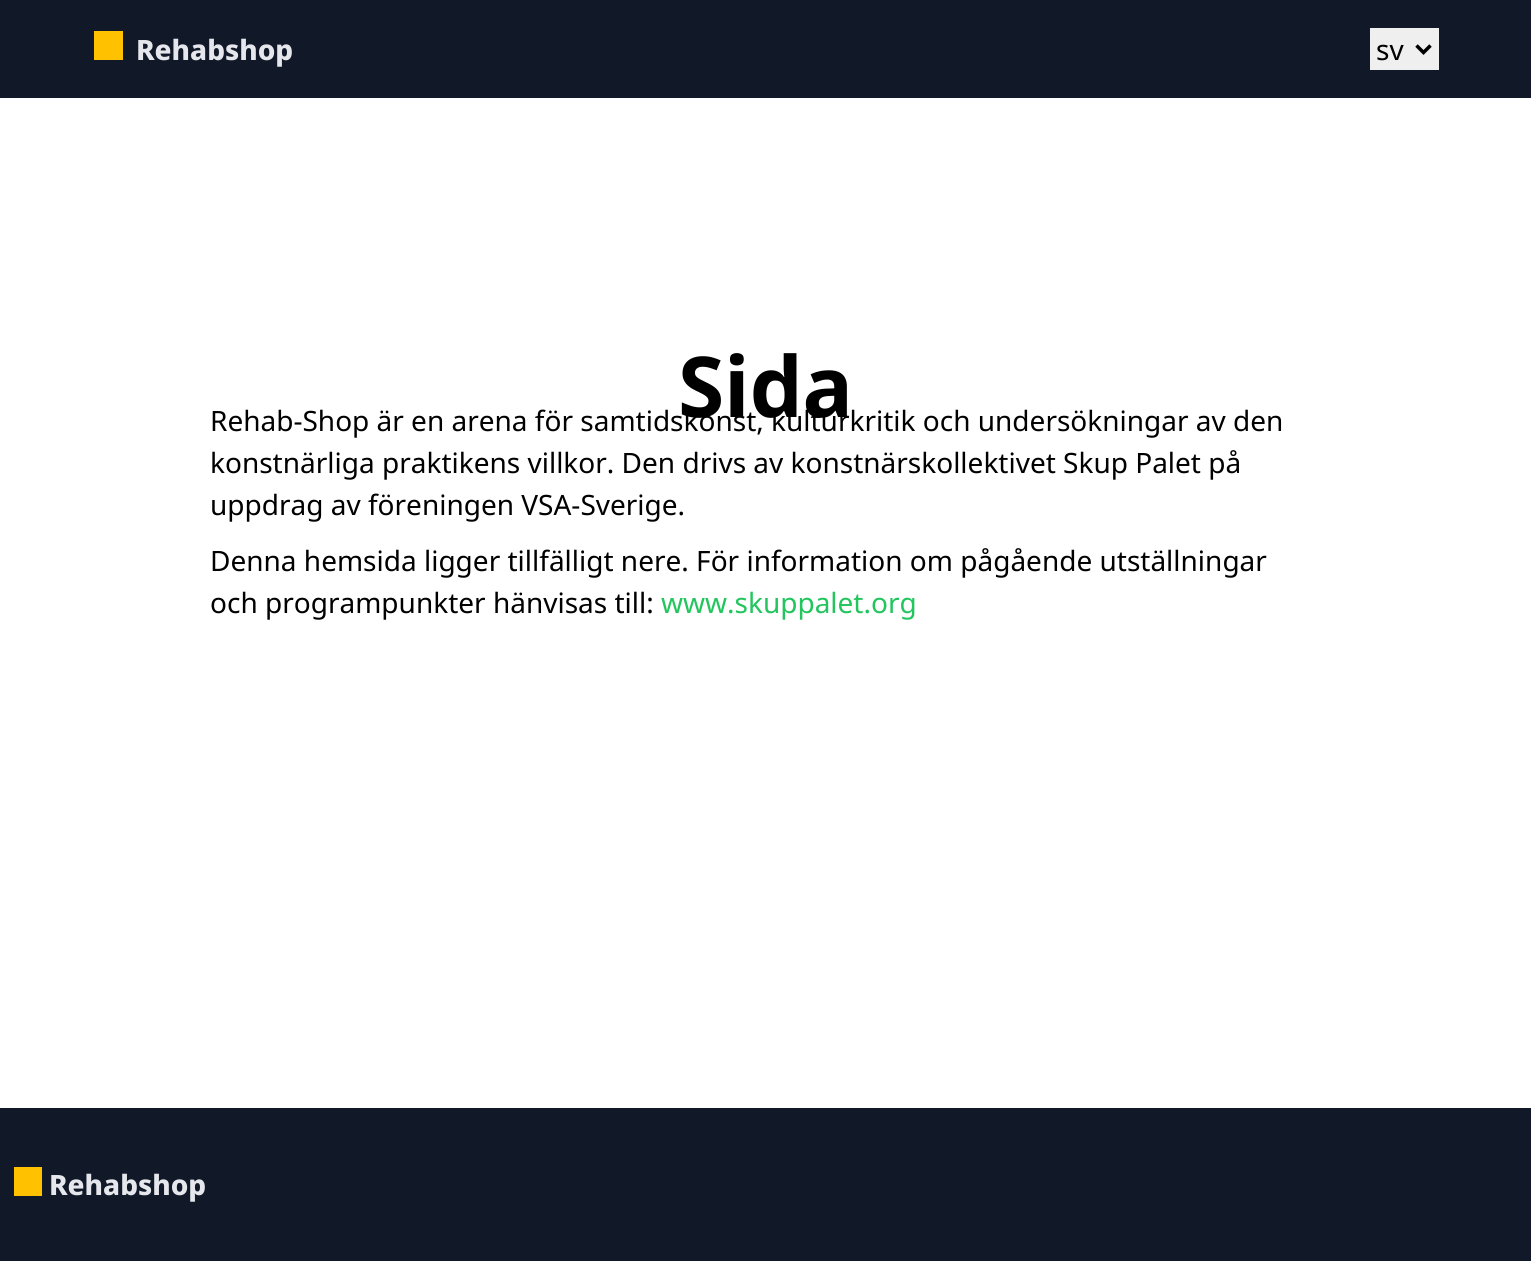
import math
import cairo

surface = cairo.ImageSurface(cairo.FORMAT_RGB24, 1531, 1261)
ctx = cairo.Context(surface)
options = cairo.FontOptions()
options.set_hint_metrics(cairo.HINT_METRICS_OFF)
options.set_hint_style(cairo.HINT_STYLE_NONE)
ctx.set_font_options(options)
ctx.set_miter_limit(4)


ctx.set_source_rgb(1, 1, 1)
ctx.paint()
ctx.set_source_rgb(0.067, 0.094, 0.153)
ctx.rectangle(0, 0, 1531, 98)
ctx.fill()
ctx.set_source_rgb(1, 0.757, 0)
ctx.rectangle(94, 31, 29, 29)
ctx.fill()
ctx.select_font_face("Noto Sans ExtraBold")
ctx.set_font_size(28)
ctx.set_source_rgb(0.898, 0.906, 0.922)
ctx.move_to(136, 60)
ctx.show_text("Rehabshop")
ctx.set_source_rgb(0.937, 0.937, 0.937)
ctx.rectangle(1370, 28, 69, 42)
ctx.fill()
ctx.new_path()
ctx.move_to(1416.5, 45.5)
ctx.line_to(1423.5, 52.5)
ctx.line_to(1430.5, 45.5)
ctx.set_source_rgb(0, 0, 0)
ctx.set_line_width(3.5)
ctx.stroke()
ctx.select_font_face("Noto Sans")
ctx.move_to(1376, 60)
ctx.show_text("sv")
ctx.select_font_face("Noto Sans", cairo.FONT_SLANT_NORMAL, cairo.FONT_WEIGHT_BOLD)
ctx.set_font_size(84)
ctx.move_to(678, 417)
ctx.show_text("Sida")
ctx.select_font_face("Noto Sans")
ctx.set_font_size(28)
ctx.move_to(210, 431)
ctx.show_text("Rehab-Shop är en arena för samtidskonst, kulturkritik och undersökningar av den")
ctx.move_to(210, 473)
ctx.show_text("konstnärliga praktikens villkor. Den drivs av konstnärskollektivet Skup Palet på")
ctx.move_to(210, 515)
ctx.show_text("uppdrag av föreningen VSA-Sverige.")
ctx.move_to(210, 571)
ctx.show_text("Denna hemsida ligger tillfälligt nere. För information om pågående utställningar")
ctx.move_to(210, 613)
ctx.show_text("och programpunkter hänvisas till:")
ctx.set_source_rgb(0.133, 0.773, 0.369)
ctx.move_to(661, 613)
ctx.show_text("www.skuppalet.org")
ctx.set_source_rgb(0.067, 0.094, 0.153)
ctx.rectangle(0, 1108, 1531, 153)
ctx.fill()
ctx.set_source_rgb(1, 0.757, 0)
ctx.rectangle(14, 1167, 28, 29)
ctx.fill()
ctx.select_font_face("Noto Sans ExtraBold")
ctx.set_source_rgb(0.898, 0.906, 0.922)
ctx.move_to(49, 1195)
ctx.show_text("Rehabshop")
surface.write_to_png("page.png")
